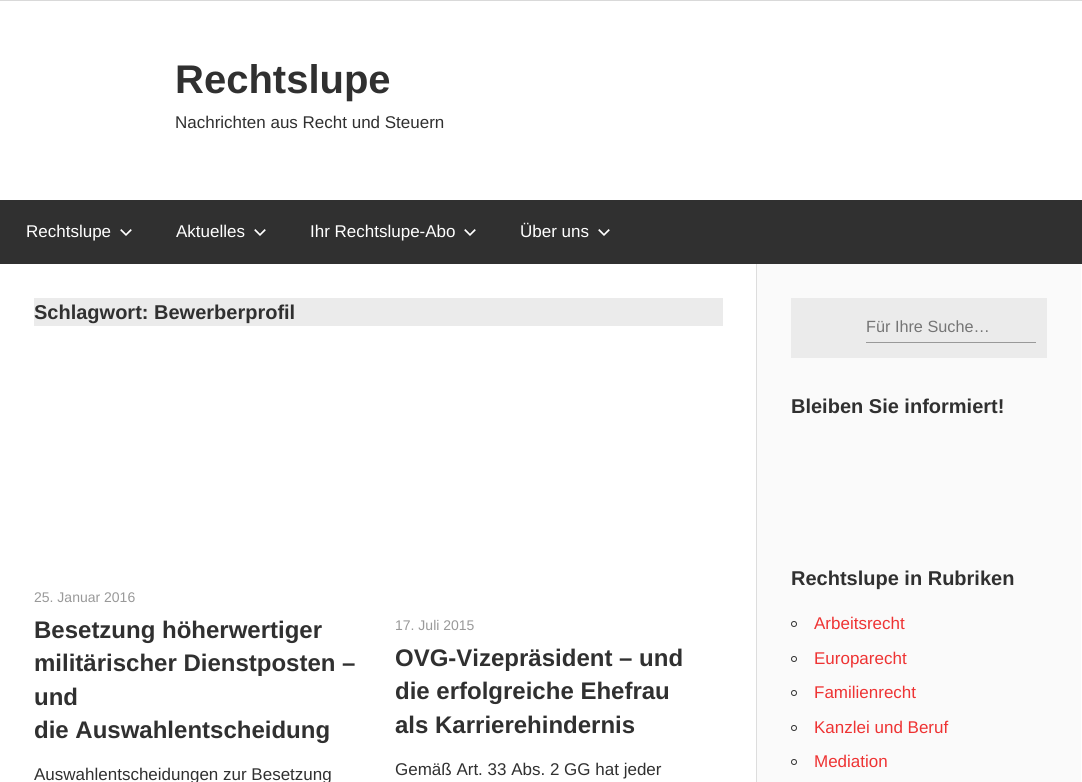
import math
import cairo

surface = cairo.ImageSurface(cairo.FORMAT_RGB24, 1082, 782)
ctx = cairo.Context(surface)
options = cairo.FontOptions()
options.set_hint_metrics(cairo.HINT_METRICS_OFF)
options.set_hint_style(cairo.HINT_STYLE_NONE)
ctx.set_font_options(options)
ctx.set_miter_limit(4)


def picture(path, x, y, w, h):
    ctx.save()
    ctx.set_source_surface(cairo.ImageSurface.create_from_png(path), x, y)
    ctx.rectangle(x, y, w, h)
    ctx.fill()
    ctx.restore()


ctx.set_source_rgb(0.851, 0.851, 0.851)
ctx.paint()
ctx.set_source_rgb(1, 1, 1)
ctx.rectangle(0, 1, 1082, 781)
ctx.fill()
ctx.select_font_face("Liberation Sans", cairo.FONT_SLANT_NORMAL, cairo.FONT_WEIGHT_BOLD)
ctx.set_font_size(40)
ctx.set_source_rgb(0.188, 0.188, 0.188)
ctx.move_to(175, 93)
ctx.show_text("Rechtslupe")
ctx.select_font_face("Liberation Sans")
ctx.set_font_size(17)
ctx.move_to(175, 128)
ctx.show_text("Nachrichten aus Recht und Steuern")
ctx.rectangle(0, 200, 1082, 64)
ctx.fill()
ctx.set_source_rgb(1, 1, 1)
ctx.move_to(26, 237)
ctx.show_text("Rechtslupe")
picture("img1.png", 120, 229, 12, 7)
ctx.move_to(176, 237)
ctx.show_text("Aktuelles")
picture("img2.png", 254, 229, 12, 7)
ctx.move_to(310, 237)
ctx.show_text("Ihr Rechtslupe-Abo")
picture("img1.png", 464, 229, 12, 7)
ctx.move_to(520, 237)
ctx.show_text("Über uns")
picture("img1.png", 598, 229, 12, 7)
ctx.set_source_rgb(0.918, 0.918, 0.918)
ctx.rectangle(34, 298, 689, 28)
ctx.fill()
ctx.select_font_face("Liberation Sans", cairo.FONT_SLANT_NORMAL, cairo.FONT_WEIGHT_BOLD)
ctx.set_font_size(20)
ctx.set_source_rgb(0.188, 0.188, 0.188)
ctx.move_to(34, 319)
ctx.show_text("Schlagwort: Bewerberprofil")
ctx.select_font_face("Liberation Sans")
ctx.set_font_size(14)
ctx.set_source_rgb(0.6, 0.6, 0.6)
ctx.move_to(34, 602)
ctx.show_text("25. Januar 2016")
ctx.select_font_face("Liberation Sans", cairo.FONT_SLANT_NORMAL, cairo.FONT_WEIGHT_BOLD)
ctx.set_font_size(24)
ctx.set_source_rgb(0.188, 0.188, 0.188)
ctx.move_to(34, 638)
ctx.show_text("Besetzung höherwertiger")
ctx.move_to(34, 671)
ctx.show_text("militärischer Dienstposten –")
ctx.move_to(34, 705)
ctx.show_text("und")
ctx.move_to(34, 738)
ctx.show_text("die Auswahlentscheidung")
ctx.select_font_face("Liberation Sans")
ctx.set_font_size(17)
ctx.move_to(34, 780)
ctx.show_text("Auswahlentscheidungen zur Besetzung")
ctx.set_font_size(14)
ctx.set_source_rgb(0.6, 0.6, 0.6)
ctx.move_to(395, 630)
ctx.show_text("17. Juli 2015")
ctx.select_font_face("Liberation Sans", cairo.FONT_SLANT_NORMAL, cairo.FONT_WEIGHT_BOLD)
ctx.set_font_size(24)
ctx.set_source_rgb(0.188, 0.188, 0.188)
ctx.move_to(395, 666)
ctx.show_text("OVG-Vizepräsident – und")
ctx.move_to(395, 699)
ctx.show_text("die erfolgreiche Ehefrau")
ctx.move_to(395, 733)
ctx.show_text("als Karrierehindernis")
ctx.select_font_face("Liberation Sans")
ctx.set_font_size(17)
ctx.move_to(395, 775)
ctx.show_text("Gemäß Art. 33 Abs. 2 GG hat jeder")
ctx.set_source_rgb(0.98, 0.98, 0.98)
ctx.rectangle(757, 264, 324, 518)
ctx.fill()
ctx.set_source_rgb(0.867, 0.867, 0.867)
ctx.rectangle(756, 264, 1, 518)
ctx.fill()
ctx.set_source_rgb(0.918, 0.918, 0.918)
ctx.rectangle(791, 298, 256, 60)
ctx.fill()
ctx.set_source_rgb(0.6, 0.6, 0.6)
ctx.rectangle(866, 342, 170, 1)
ctx.fill()
ctx.set_font_size(16.25)
ctx.set_source_rgb(0.459, 0.459, 0.459)
ctx.move_to(866, 332)
ctx.show_text("Für Ihre Suche…")
ctx.select_font_face("Liberation Sans", cairo.FONT_SLANT_NORMAL, cairo.FONT_WEIGHT_BOLD)
ctx.set_font_size(20)
ctx.set_source_rgb(0.188, 0.188, 0.188)
ctx.move_to(791, 413)
ctx.show_text("Bleiben Sie informiert!")
ctx.move_to(791, 585)
ctx.show_text("Rechtslupe in Rubriken")
ctx.new_path()
ctx.arc(794, 624, 2.5, 0, 2 * math.pi)
ctx.set_line_width(1)
ctx.stroke()
ctx.select_font_face("Liberation Sans")
ctx.set_font_size(17)
ctx.set_source_rgb(0.933, 0.2, 0.2)
ctx.move_to(814, 629)
ctx.show_text("Arbeitsrecht")
ctx.new_path()
ctx.arc(794, 659, 2.5, 0, 2 * math.pi)
ctx.set_source_rgb(0.188, 0.188, 0.188)
ctx.stroke()
ctx.set_source_rgb(0.933, 0.2, 0.2)
ctx.move_to(814, 664)
ctx.show_text("Europarecht")
ctx.new_path()
ctx.arc(794, 693, 2.5, 0, 2 * math.pi)
ctx.set_source_rgb(0.188, 0.188, 0.188)
ctx.stroke()
ctx.set_source_rgb(0.933, 0.2, 0.2)
ctx.move_to(814, 698)
ctx.show_text("Familienrecht")
ctx.new_path()
ctx.arc(794, 728, 2.5, 0, 2 * math.pi)
ctx.set_source_rgb(0.188, 0.188, 0.188)
ctx.stroke()
ctx.set_source_rgb(0.933, 0.2, 0.2)
ctx.move_to(814, 733)
ctx.show_text("Kanzlei und Beruf")
ctx.new_path()
ctx.arc(794, 762, 2.5, 0, 2 * math.pi)
ctx.set_source_rgb(0.188, 0.188, 0.188)
ctx.stroke()
ctx.set_source_rgb(0.933, 0.2, 0.2)
ctx.move_to(814, 767)
ctx.show_text("Mediation")
surface.write_to_png("page.png")
